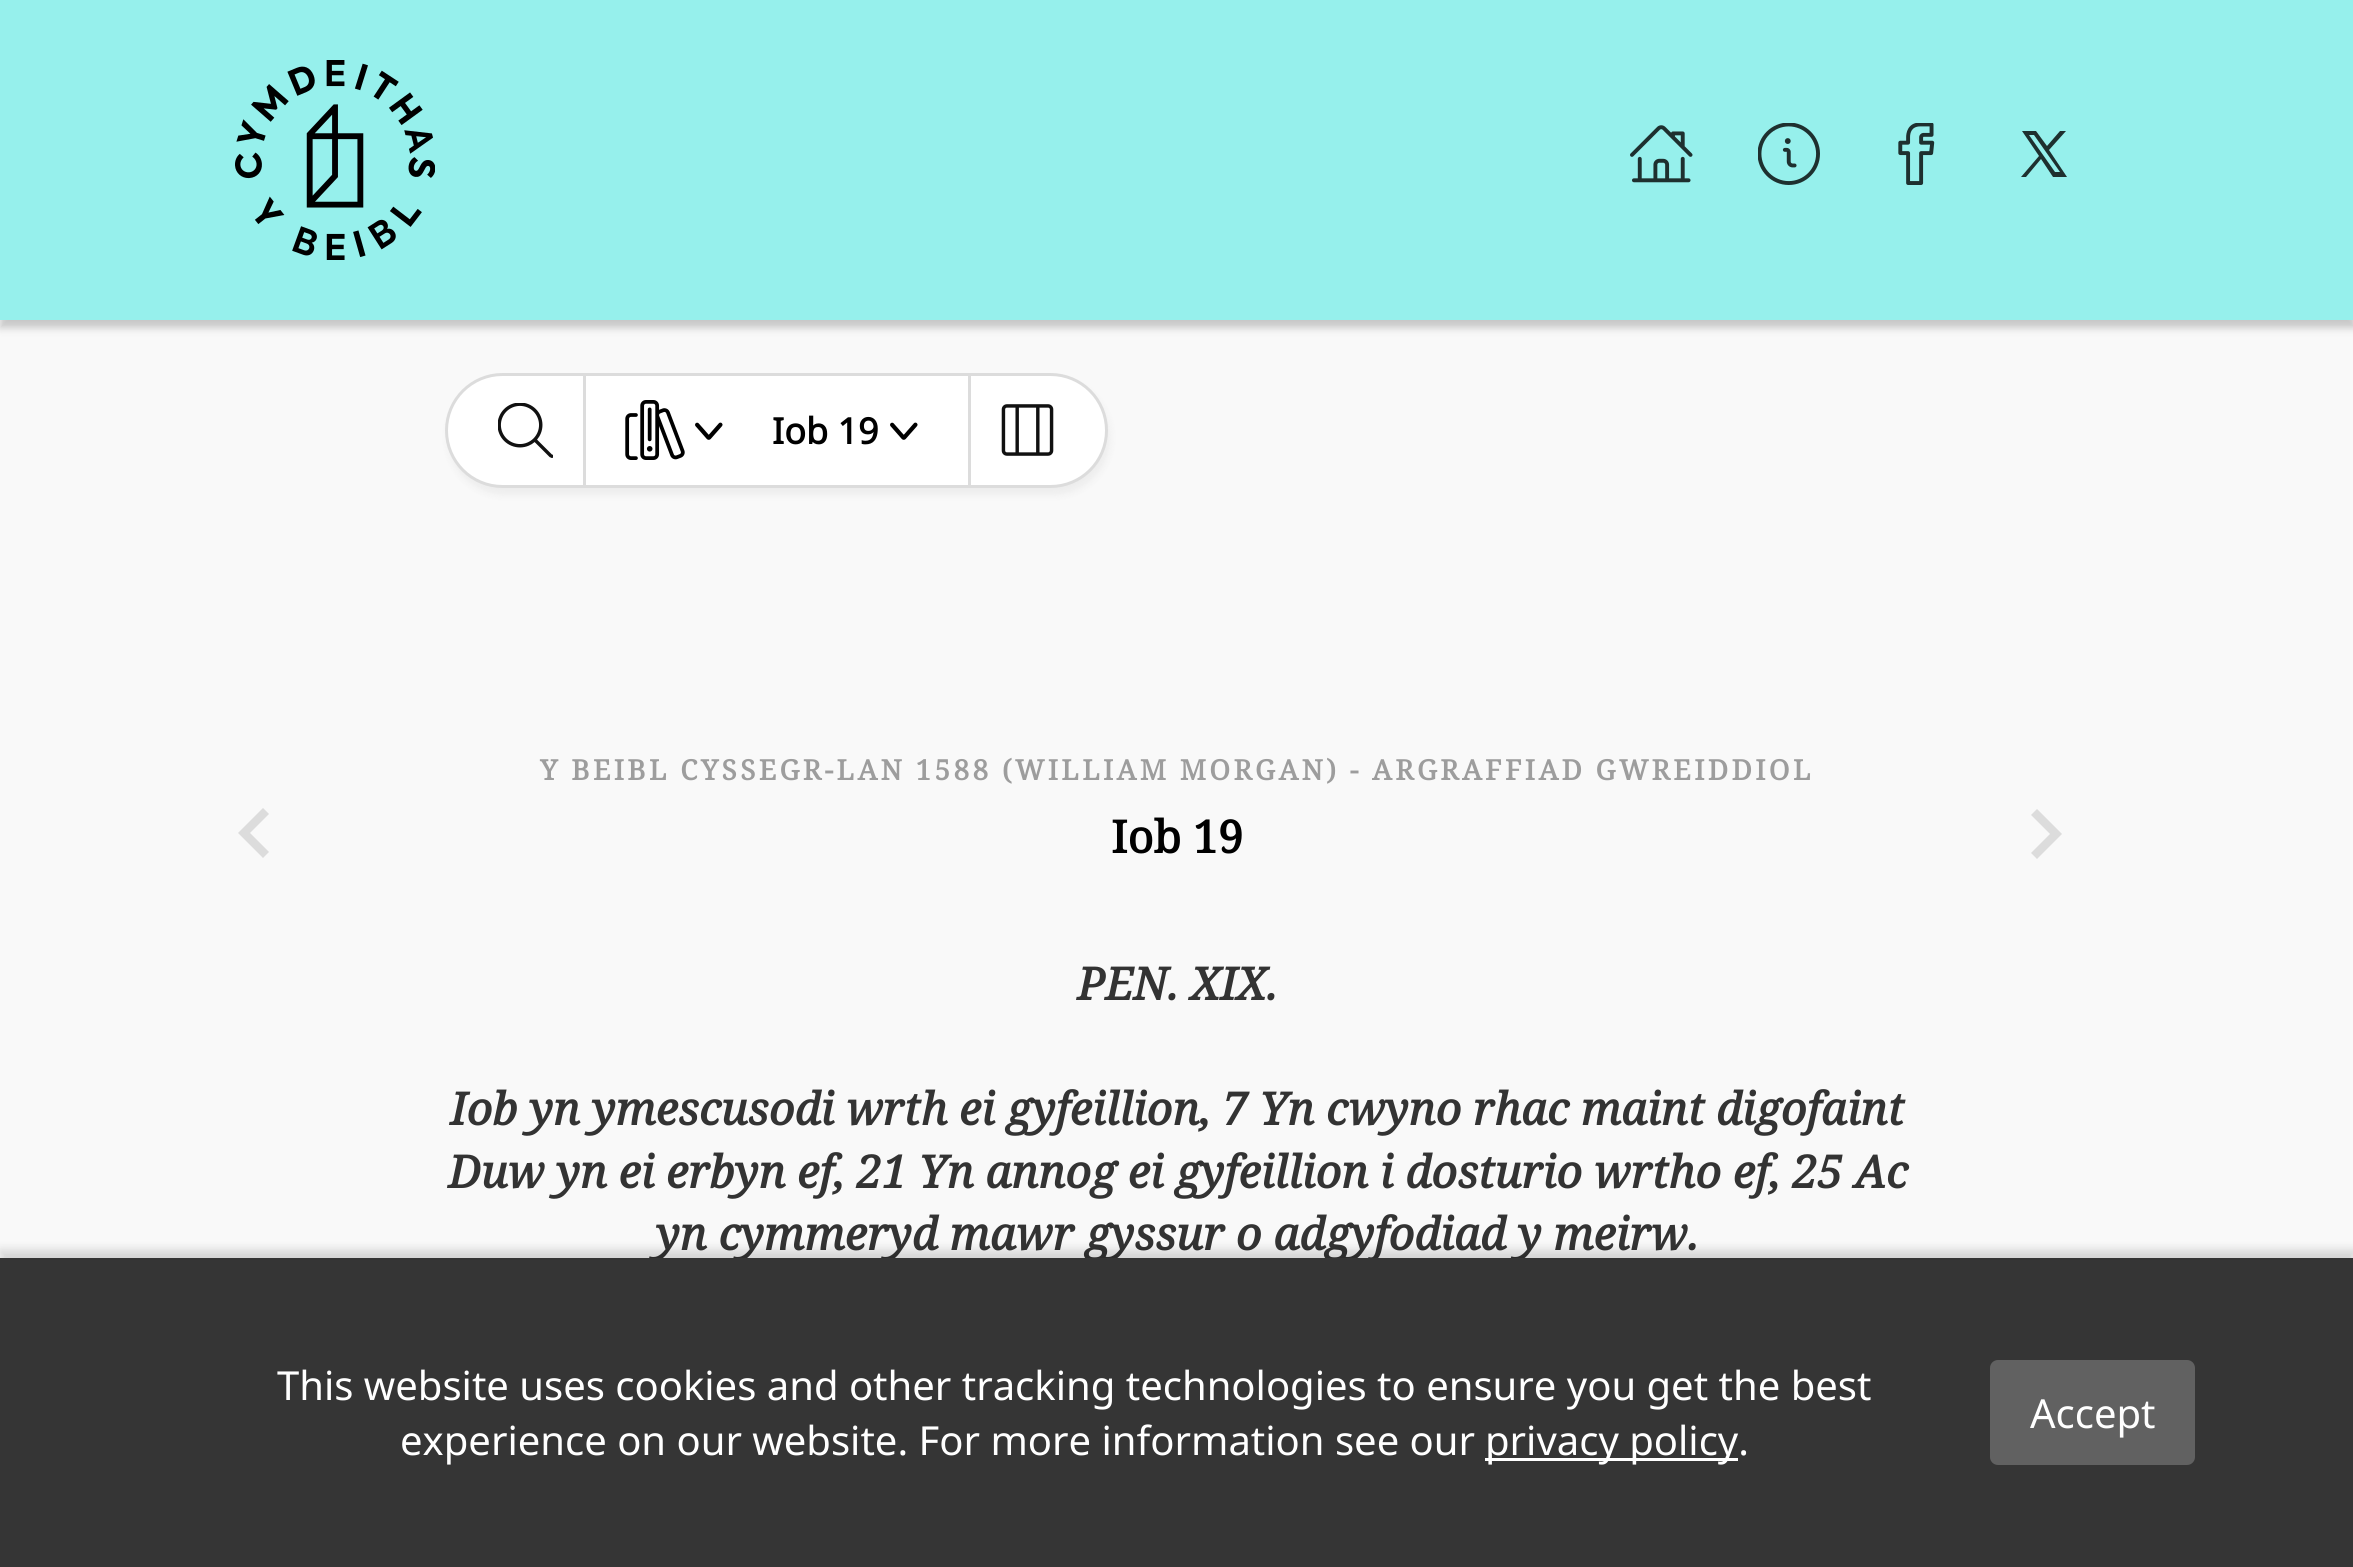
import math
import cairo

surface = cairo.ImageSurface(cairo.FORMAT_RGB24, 2353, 1567)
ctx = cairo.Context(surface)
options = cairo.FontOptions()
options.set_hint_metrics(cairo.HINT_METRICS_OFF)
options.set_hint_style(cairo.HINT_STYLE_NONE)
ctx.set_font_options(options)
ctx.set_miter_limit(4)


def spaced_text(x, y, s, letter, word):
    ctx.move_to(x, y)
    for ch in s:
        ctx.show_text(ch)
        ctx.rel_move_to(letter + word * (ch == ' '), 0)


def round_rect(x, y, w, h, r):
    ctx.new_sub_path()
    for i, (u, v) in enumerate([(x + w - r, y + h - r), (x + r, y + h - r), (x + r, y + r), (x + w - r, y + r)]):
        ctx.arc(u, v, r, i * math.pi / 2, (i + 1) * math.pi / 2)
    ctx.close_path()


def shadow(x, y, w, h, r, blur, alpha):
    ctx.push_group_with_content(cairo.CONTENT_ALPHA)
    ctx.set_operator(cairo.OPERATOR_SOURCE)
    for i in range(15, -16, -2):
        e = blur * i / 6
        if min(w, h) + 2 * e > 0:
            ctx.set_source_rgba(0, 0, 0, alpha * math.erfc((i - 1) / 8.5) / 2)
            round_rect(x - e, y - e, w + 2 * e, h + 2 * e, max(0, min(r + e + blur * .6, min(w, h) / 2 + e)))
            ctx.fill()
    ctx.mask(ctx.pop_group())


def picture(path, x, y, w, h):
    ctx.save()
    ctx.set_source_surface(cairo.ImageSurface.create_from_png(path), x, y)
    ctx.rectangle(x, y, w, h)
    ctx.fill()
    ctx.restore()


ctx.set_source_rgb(0.973, 0.973, 0.973)
ctx.paint()
ctx.set_source_rgb(0, 0, 0)
shadow(0, 8, 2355, 320, 0, 4, 0.2)
ctx.set_source_rgb(0.588, 0.941, 0.922)
ctx.rectangle(0, 0, 2353, 320)
ctx.fill()
picture("img1.png", 235, 60, 200, 200)
picture("img2.png", 1630, 125, 63, 58)
picture("img3.png", 1758, 123, 62, 62)
picture("img4.png", 1898, 123, 37, 62)
ctx.set_source_rgb(0.118, 0.188, 0.184)
ctx.new_path()
ctx.move_to(2067, 177)
ctx.line_to(2049, 150)
ctx.line_to(2066, 131)
ctx.line_to(2060, 131)
ctx.line_to(2047, 146)
ctx.line_to(2036, 131)
ctx.line_to(2022, 131)
ctx.line_to(2039, 156)
ctx.line_to(2021, 177)
ctx.line_to(2026, 177)
ctx.line_to(2041, 159)
ctx.line_to(2053, 177)
ctx.close_path()
ctx.move_to(2034, 135)
ctx.line_to(2060, 172)
ctx.line_to(2055, 172)
ctx.line_to(2029, 135)
ctx.close_path()
ctx.fill()
ctx.set_source_rgb(0, 0, 0)
shadow(448, 380, 662, 115, 57.5, 4, 0.05)
ctx.set_source_rgb(1, 1, 1)
round_rect(446.5, 374.5, 660, 112, 56)
ctx.fill_preserve()
ctx.set_source_rgb(0.863, 0.863, 0.863)
ctx.set_line_width(3)
ctx.stroke()
ctx.rectangle(583, 375, 3, 110)
ctx.fill()
picture("img5.png", 498, 403, 55, 55)
picture("img6.png", 625, 400, 60, 60)
picture("img7.png", 695, 422, 28, 18)
ctx.select_font_face("Noto Sans", cairo.FONT_SLANT_NORMAL, cairo.FONT_WEIGHT_BOLD)
ctx.set_font_size(36)
ctx.set_source_rgb(0, 0, 0)
ctx.move_to(772, 444)
ctx.show_text("Iob 19")
picture("img7.png", 890, 422, 28, 18)
ctx.set_source_rgb(0.863, 0.863, 0.863)
ctx.rectangle(968, 375, 3, 110)
ctx.fill()
picture("img8.png", 1001, 404, 53, 52)
ctx.new_path()
ctx.move_to(269, 852)
ctx.line_to(250, 833)
ctx.line_to(269, 814)
ctx.line_to(263, 808)
ctx.line_to(238, 833)
ctx.line_to(263, 858)
ctx.close_path()
ctx.fill()
ctx.select_font_face("Noto Serif", cairo.FONT_SLANT_NORMAL, cairo.FONT_WEIGHT_BOLD)
ctx.set_font_size(28)
ctx.set_source_rgb(0.616, 0.616, 0.616)
spaced_text(540, 780, "Y BEIBL CYSSEGR-LAN 1588 (WILLIAM MORGAN) - ARGRAFFIAD GWREIDDIOL", 3.35, -0.25)
ctx.set_font_size(45)
ctx.set_source_rgb(0, 0, 0)
ctx.move_to(1111, 853)
ctx.show_text("Iob 19")
ctx.select_font_face("Noto Serif", cairo.FONT_SLANT_ITALIC, cairo.FONT_WEIGHT_BOLD)
ctx.set_source_rgb(0.2, 0.2, 0.2)
ctx.move_to(1077, 1000)
ctx.show_text("PEN. XIX.")
ctx.move_to(450, 1125)
ctx.show_text("Iob yn ymescusodi wrth ei gyfeillion, 7 Yn cwyno rhac maint digofaint")
ctx.move_to(448, 1188)
ctx.show_text("Duw yn ei erbyn ef, 21 Yn annog ei gyfeillion i dosturio wrtho ef, 25 Ac")
ctx.move_to(656, 1250)
ctx.show_text("yn cymmeryd mawr gyssur o adgyfodiad y meirw.")
ctx.set_source_rgb(0.863, 0.863, 0.863)
ctx.new_path()
ctx.move_to(2031, 853)
ctx.line_to(2050, 834)
ctx.line_to(2031, 815)
ctx.line_to(2037, 809)
ctx.line_to(2062, 834)
ctx.line_to(2037, 859)
ctx.close_path()
ctx.fill()
ctx.set_source_rgb(0, 0, 0)
shadow(0, 1250, 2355, 310, 0, 5, 0.15)
ctx.set_source_rgb(0.208, 0.208, 0.208)
ctx.rectangle(0, 1258, 2353, 309)
ctx.fill()
ctx.select_font_face("Noto Sans")
ctx.set_font_size(40)
ctx.set_source_rgb(1, 1, 1)
ctx.move_to(277, 1400)
ctx.show_text("This website uses cookies and other tracking technologies to ensure you get the best")
ctx.move_to(400, 1455)
ctx.show_text("experience on our website. For more information see our")
ctx.rectangle(1485, 1458, 253, 3)
ctx.fill()
ctx.move_to(1485, 1455)
ctx.show_text("privacy policy.")
ctx.set_source_rgb(0.38, 0.38, 0.38)
round_rect(1990, 1360, 205, 105, 8)
ctx.fill()
ctx.set_source_rgb(1, 1, 1)
ctx.move_to(2030, 1428)
ctx.show_text("Accept")
surface.write_to_png("page.png")
